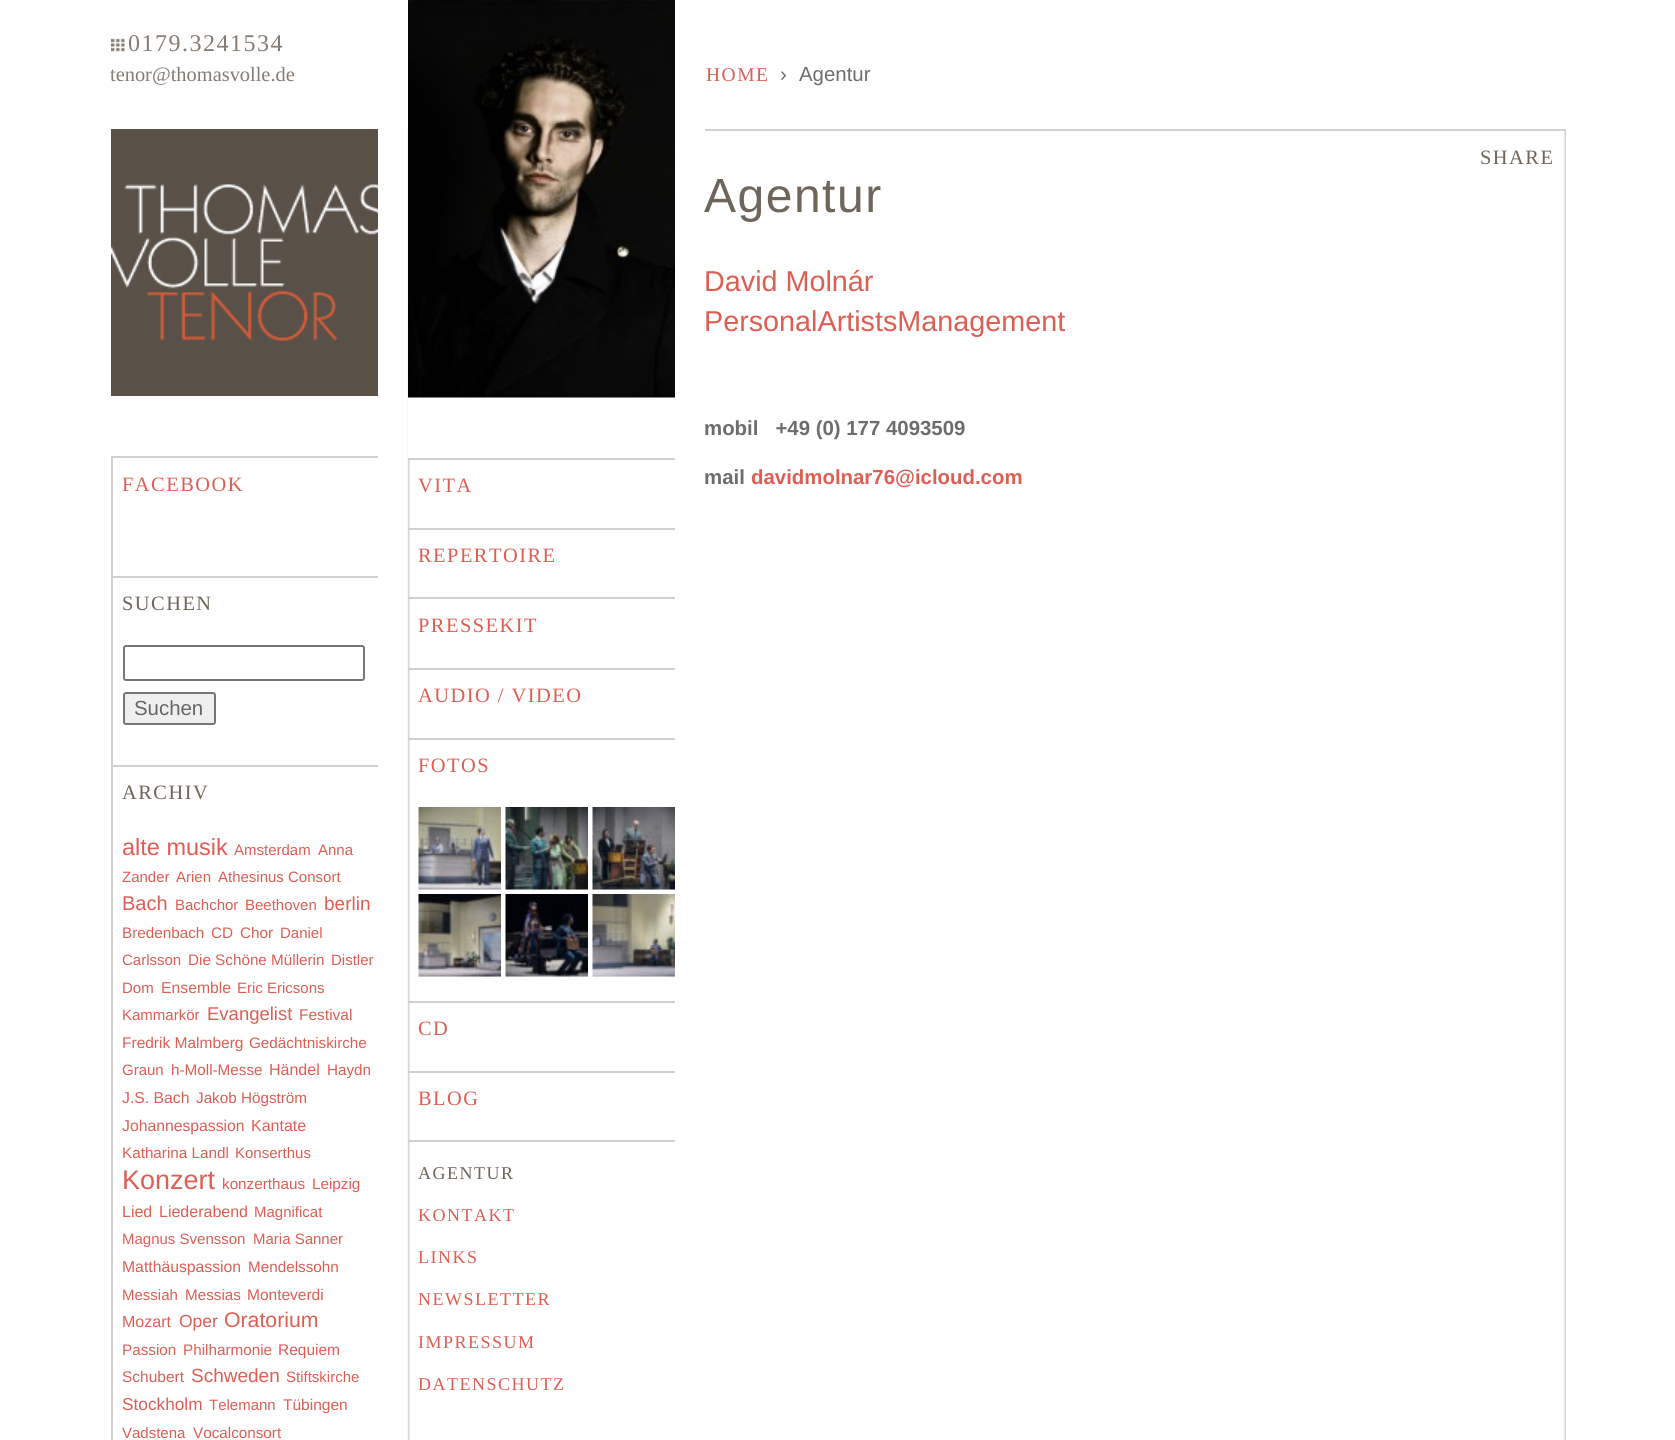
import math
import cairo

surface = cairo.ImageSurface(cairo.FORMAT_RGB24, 1675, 1440)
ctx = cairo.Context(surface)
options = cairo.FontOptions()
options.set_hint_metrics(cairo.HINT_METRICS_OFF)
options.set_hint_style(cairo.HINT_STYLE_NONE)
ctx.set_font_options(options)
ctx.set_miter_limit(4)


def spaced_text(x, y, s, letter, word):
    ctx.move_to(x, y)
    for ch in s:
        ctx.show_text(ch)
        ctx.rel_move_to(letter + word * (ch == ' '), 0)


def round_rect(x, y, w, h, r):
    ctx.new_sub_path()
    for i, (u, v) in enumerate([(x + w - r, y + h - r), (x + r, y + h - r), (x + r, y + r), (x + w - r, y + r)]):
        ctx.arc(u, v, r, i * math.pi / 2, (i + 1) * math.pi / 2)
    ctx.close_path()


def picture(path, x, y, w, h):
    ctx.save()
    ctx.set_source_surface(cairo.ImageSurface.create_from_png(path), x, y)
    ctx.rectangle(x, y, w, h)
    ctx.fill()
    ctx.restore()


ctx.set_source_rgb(1, 1, 1)
ctx.paint()
picture("img1.png", 111, 38, 14, 14)
ctx.select_font_face("Liberation Serif")
ctx.set_font_size(24)
ctx.set_source_rgb(0.522, 0.486, 0.451)
spaced_text(128, 51, "0179.3241534", 1.5, 0)
ctx.set_font_size(20.4)
ctx.move_to(110, 81)
ctx.show_text("tenor@thomasvolle.de")
ctx.set_font_size(19.5)
ctx.set_source_rgb(0.871, 0.369, 0.329)
spaced_text(706, 81, "HOME", 1.5, 0)
ctx.select_font_face("Liberation Sans")
ctx.set_font_size(20.4)
ctx.set_source_rgb(0.431, 0.427, 0.42)
ctx.move_to(780, 81)
ctx.show_text("›")
ctx.move_to(799, 81)
ctx.show_text("Agentur")
picture("img2.png", 407, 129, 1159, 1311)
ctx.set_source_rgb(0.824, 0.816, 0.812)
ctx.rectangle(705, 129, 861, 2)
ctx.fill()
ctx.select_font_face("Liberation Serif")
ctx.set_source_rgb(0.431, 0.396, 0.357)
spaced_text(1480, 164, "SHARE", 1.5, 0)
ctx.select_font_face("Liberation Sans")
ctx.set_font_size(48)
spaced_text(704, 212, "Agentur", 1.5, 0)
ctx.set_font_size(28.75)
ctx.set_source_rgb(0.871, 0.369, 0.329)
ctx.move_to(704, 291)
ctx.show_text("David Molnár")
ctx.move_to(704, 331)
ctx.show_text("PersonalArtistsManagement")
ctx.select_font_face("Liberation Sans", cairo.FONT_SLANT_NORMAL, cairo.FONT_WEIGHT_BOLD)
ctx.set_font_size(20.4)
ctx.set_source_rgb(0.431, 0.427, 0.42)
ctx.move_to(704, 435)
ctx.show_text("mobil   +49 (0) 177 4093509")
ctx.move_to(704, 484)
ctx.show_text("mail")
ctx.set_source_rgb(0.871, 0.369, 0.329)
ctx.move_to(751, 484)
ctx.show_text("davidmolnar76@icloud.com")
picture("img3.png", 111, 129, 267, 267)
ctx.set_source_rgb(0.824, 0.816, 0.812)
ctx.rectangle(111, 456, 2, 984)
ctx.fill()
ctx.rectangle(113, 456, 265, 2)
ctx.fill()
ctx.select_font_face("Liberation Serif")
ctx.set_source_rgb(0.871, 0.369, 0.329)
spaced_text(122, 491, "FACEBOOK", 1.5, 0)
ctx.set_source_rgb(0.824, 0.816, 0.812)
ctx.rectangle(113, 576, 265, 2)
ctx.fill()
ctx.set_source_rgb(0.431, 0.396, 0.357)
spaced_text(122, 610, "SUCHEN", 1.5, 0)
round_rect(124, 646, 240, 34, 2)
ctx.set_source_rgb(0.463, 0.463, 0.463)
ctx.stroke()
ctx.set_source_rgb(0.937, 0.937, 0.937)
round_rect(124, 693, 91, 31, 2)
ctx.fill_preserve()
ctx.set_source_rgb(0.463, 0.463, 0.463)
ctx.stroke()
ctx.select_font_face("Liberation Sans")
ctx.set_source_rgb(0.4, 0.4, 0.4)
ctx.move_to(134, 715)
ctx.show_text("Suchen")
ctx.set_source_rgb(0.824, 0.816, 0.812)
ctx.rectangle(113, 765, 265, 2)
ctx.fill()
ctx.select_font_face("Liberation Serif")
ctx.set_source_rgb(0.431, 0.396, 0.357)
spaced_text(122, 799, "ARCHIV", 1.5, 0)
ctx.select_font_face("Liberation Sans")
ctx.set_font_size(23.5)
ctx.set_source_rgb(0.871, 0.369, 0.329)
ctx.move_to(122, 855)
ctx.show_text("alte musik")
ctx.set_font_size(15)
ctx.move_to(234, 855)
ctx.show_text("Amsterdam")
ctx.move_to(318, 855)
ctx.show_text("Anna")
ctx.move_to(122, 882)
ctx.show_text("Zander")
ctx.move_to(176, 882)
ctx.show_text("Arien")
ctx.move_to(218, 882)
ctx.show_text("Athesinus Consort")
ctx.set_font_size(20)
ctx.move_to(122, 910)
ctx.show_text("Bach")
ctx.set_font_size(15)
ctx.move_to(175, 910)
ctx.show_text("Bachchor")
ctx.move_to(245, 910)
ctx.show_text("Beethoven")
ctx.set_font_size(19)
ctx.move_to(324, 910)
ctx.show_text("berlin")
ctx.set_font_size(15.25)
ctx.move_to(122, 938)
ctx.show_text("Bredenbach")
ctx.move_to(211, 938)
ctx.show_text("CD")
ctx.move_to(240, 938)
ctx.show_text("Chor")
ctx.set_font_size(15)
ctx.move_to(280, 938)
ctx.show_text("Daniel")
ctx.move_to(122, 965)
ctx.show_text("Carlsson")
ctx.set_font_size(15.25)
ctx.move_to(188, 965)
ctx.show_text("Die Schöne Müllerin")
ctx.set_font_size(15)
ctx.move_to(331, 965)
ctx.show_text("Distler")
ctx.move_to(122, 993)
ctx.show_text("Dom")
ctx.set_font_size(15.75)
ctx.move_to(161, 993)
ctx.show_text("Ensemble")
ctx.set_font_size(15)
ctx.move_to(237, 993)
ctx.show_text("Eric Ericsons")
ctx.move_to(122, 1020)
ctx.show_text("Kammarkör")
ctx.set_font_size(18.5)
ctx.move_to(207, 1020)
ctx.show_text("Evangelist")
ctx.set_font_size(15.5)
ctx.move_to(299, 1020)
ctx.show_text("Festival")
ctx.move_to(122, 1048)
ctx.show_text("Fredrik Malmberg")
ctx.set_font_size(15.25)
ctx.move_to(249, 1048)
ctx.show_text("Gedächtniskirche")
ctx.set_font_size(15)
ctx.move_to(122, 1075)
ctx.show_text("Graun")
ctx.set_font_size(15.25)
ctx.move_to(171, 1075)
ctx.show_text("h-Moll-Messe")
ctx.set_font_size(16)
ctx.move_to(269, 1075)
ctx.show_text("Händel")
ctx.set_font_size(15.25)
ctx.move_to(327, 1075)
ctx.show_text("Haydn")
ctx.set_font_size(15.75)
ctx.move_to(122, 1103)
ctx.show_text("J.S. Bach")
ctx.set_font_size(15.25)
ctx.move_to(196, 1103)
ctx.show_text("Jakob Högström")
ctx.set_font_size(15.75)
ctx.move_to(122, 1131)
ctx.show_text("Johannespassion")
ctx.set_font_size(16)
ctx.move_to(251, 1131)
ctx.show_text("Kantate")
ctx.set_font_size(15.25)
ctx.move_to(122, 1158)
ctx.show_text("Katharina Landl")
ctx.set_font_size(15)
ctx.move_to(235, 1158)
ctx.show_text("Konserthus")
ctx.set_font_size(27)
ctx.move_to(122, 1189)
ctx.show_text("Konzert")
ctx.set_font_size(15.25)
ctx.move_to(222, 1189)
ctx.show_text("konzerthaus")
ctx.move_to(312, 1189)
ctx.show_text("Leipzig")
ctx.set_font_size(16)
ctx.move_to(122, 1217)
ctx.show_text("Lied")
ctx.move_to(159, 1217)
ctx.show_text("Liederabend")
ctx.set_font_size(15)
ctx.move_to(254, 1217)
ctx.show_text("Magnificat")
ctx.move_to(122, 1244)
ctx.show_text("Magnus Svensson")
ctx.move_to(253, 1244)
ctx.show_text("Maria Sanner")
ctx.set_font_size(15.75)
ctx.move_to(122, 1272)
ctx.show_text("Matthäuspassion")
ctx.set_font_size(15.25)
ctx.move_to(248, 1272)
ctx.show_text("Mendelssohn")
ctx.set_font_size(15)
ctx.move_to(122, 1300)
ctx.show_text("Messiah")
ctx.set_font_size(15.25)
ctx.move_to(185, 1300)
ctx.show_text("Messias")
ctx.set_font_size(15.5)
ctx.move_to(247, 1300)
ctx.show_text("Monteverdi")
ctx.set_font_size(16)
ctx.move_to(122, 1327)
ctx.show_text("Mozart")
ctx.set_font_size(17.5)
ctx.move_to(179, 1327)
ctx.show_text("Oper")
ctx.set_font_size(21.25)
ctx.move_to(224, 1327)
ctx.show_text("Oratorium")
ctx.set_font_size(15.25)
ctx.move_to(122, 1355)
ctx.show_text("Passion")
ctx.move_to(183, 1355)
ctx.show_text("Philharmonie")
ctx.set_font_size(15.5)
ctx.move_to(278, 1355)
ctx.show_text("Requiem")
ctx.move_to(122, 1382)
ctx.show_text("Schubert")
ctx.set_font_size(19)
ctx.move_to(191, 1382)
ctx.show_text("Schweden")
ctx.set_font_size(15)
ctx.move_to(286, 1382)
ctx.show_text("Stiftskirche")
ctx.set_font_size(17.25)
ctx.move_to(122, 1410)
ctx.show_text("Stockholm")
ctx.set_font_size(15)
ctx.move_to(209, 1410)
ctx.show_text("Telemann")
ctx.set_font_size(15.5)
ctx.move_to(283, 1410)
ctx.show_text("Tübingen")
ctx.set_font_size(15)
ctx.move_to(122, 1438)
ctx.show_text("Vadstena")
ctx.set_font_size(15.25)
ctx.move_to(193, 1438)
ctx.show_text("Vocalconsort")
ctx.set_source_rgb(1, 1, 1)
ctx.rectangle(408, 397, 2, 61)
ctx.fill()
picture("img4.png", 408, 0, 267, 398)
ctx.set_source_rgb(0.824, 0.816, 0.812)
ctx.rectangle(408, 458, 267, 2)
ctx.fill()
ctx.select_font_face("Liberation Serif")
ctx.set_font_size(20.4)
ctx.set_source_rgb(0.871, 0.369, 0.329)
spaced_text(418, 492, "VITA", 1.5, 0)
ctx.set_source_rgb(0.824, 0.816, 0.812)
ctx.rectangle(408, 528, 267, 2)
ctx.fill()
ctx.set_source_rgb(0.871, 0.369, 0.329)
spaced_text(418, 562, "REPERTOIRE", 1.5, 0)
ctx.set_source_rgb(0.824, 0.816, 0.812)
ctx.rectangle(408, 597, 267, 2)
ctx.fill()
ctx.set_source_rgb(0.871, 0.369, 0.329)
spaced_text(418, 632, "PRESSEKIT", 1.5, 0)
ctx.set_source_rgb(0.824, 0.816, 0.812)
ctx.rectangle(408, 668, 267, 2)
ctx.fill()
ctx.set_source_rgb(0.871, 0.369, 0.329)
spaced_text(418, 702, "AUDIO / VIDEO", 1.5, 0)
ctx.set_source_rgb(0.824, 0.816, 0.812)
ctx.rectangle(408, 738, 267, 2)
ctx.fill()
ctx.set_source_rgb(0.871, 0.369, 0.329)
spaced_text(418, 772, "FOTOS", 1.5, 0)
ctx.set_source_rgb(0.945, 0.933, 0.922)
ctx.rectangle(419, 889, 82, 1)
ctx.fill()
picture("img5.png", 418, 807, 83, 83)
ctx.rectangle(506, 889, 82, 1)
ctx.fill()
picture("img6.png", 505, 807, 83, 83)
ctx.rectangle(593, 889, 82, 1)
ctx.fill()
picture("img7.png", 592, 807, 83, 83)
ctx.rectangle(419, 976, 82, 1)
ctx.fill()
picture("img8.png", 418, 894, 83, 83)
ctx.rectangle(506, 976, 82, 1)
ctx.fill()
picture("img9.png", 505, 894, 83, 83)
ctx.rectangle(593, 976, 82, 1)
ctx.fill()
picture("img10.png", 592, 894, 83, 83)
ctx.set_source_rgb(0.824, 0.816, 0.812)
ctx.rectangle(408, 1001, 267, 2)
ctx.fill()
ctx.set_source_rgb(0.871, 0.369, 0.329)
spaced_text(418, 1035, "CD", 1.5, 0)
ctx.set_source_rgb(0.824, 0.816, 0.812)
ctx.rectangle(408, 1071, 267, 2)
ctx.fill()
ctx.rectangle(408, 1140, 267, 2)
ctx.fill()
ctx.set_source_rgb(0.871, 0.369, 0.329)
spaced_text(418, 1105, "BLOG", 1.5, 0)
ctx.set_font_size(18)
ctx.set_source_rgb(0.431, 0.396, 0.357)
spaced_text(418, 1179, "AGENTUR", 1.5, 0)
ctx.set_source_rgb(0.871, 0.369, 0.329)
spaced_text(418, 1221, "KONTAKT", 1.5, 0)
spaced_text(418, 1263, "LINKS", 1.5, 0)
spaced_text(418, 1305, "NEWSLETTER", 1.5, 0)
spaced_text(418, 1348, "IMPRESSUM", 1.5, 0)
spaced_text(418, 1390, "DATENSCHUTZ", 1.5, 0)
surface.write_to_png("page.png")
